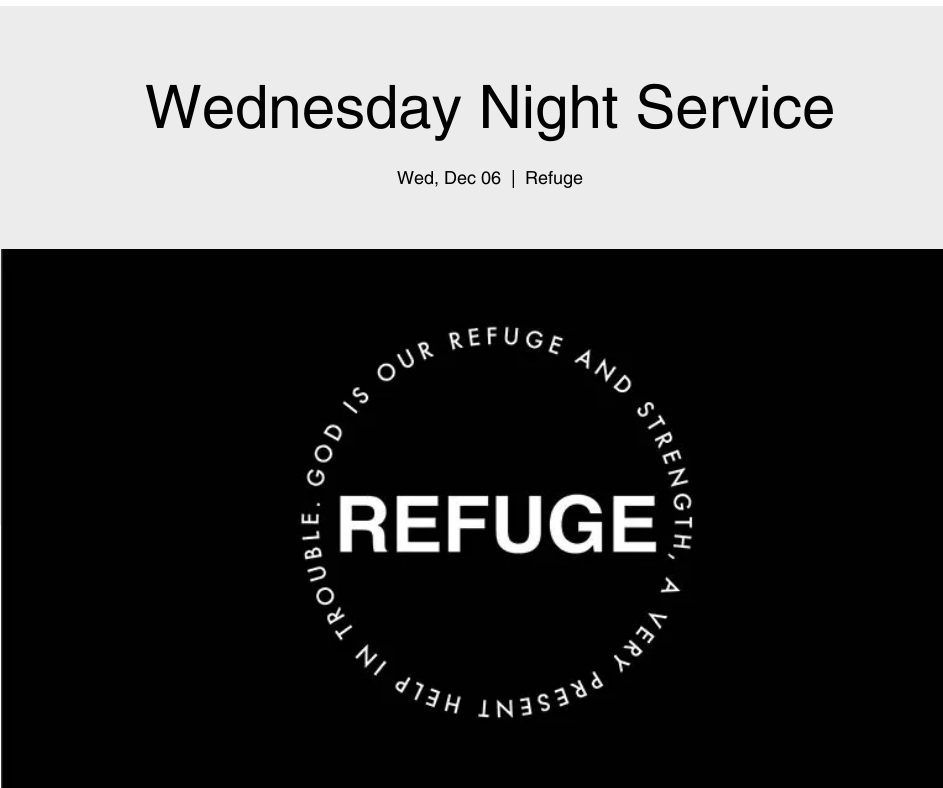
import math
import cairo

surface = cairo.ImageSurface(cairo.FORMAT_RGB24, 943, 788)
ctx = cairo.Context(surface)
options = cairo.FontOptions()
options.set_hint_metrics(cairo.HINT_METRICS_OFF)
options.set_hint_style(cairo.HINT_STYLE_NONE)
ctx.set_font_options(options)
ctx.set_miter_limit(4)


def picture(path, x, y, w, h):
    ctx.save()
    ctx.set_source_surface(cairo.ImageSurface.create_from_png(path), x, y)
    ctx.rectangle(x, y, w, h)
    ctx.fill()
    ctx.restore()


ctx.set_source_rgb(1, 1, 1)
ctx.paint()
ctx.set_source_rgb(0.922, 0.922, 0.922)
ctx.rectangle(0, 6, 943, 519)
ctx.fill()
ctx.select_font_face("helvetica")
ctx.set_font_size(60)
ctx.set_source_rgb(0, 0, 0)
ctx.move_to(145, 128)
ctx.show_text("Wednesday Night Service")
ctx.set_font_size(18)
ctx.move_to(397, 184)
ctx.show_text("Wed, Dec 06")
ctx.move_to(511, 184)
ctx.show_text("|")
ctx.move_to(525, 184)
ctx.show_text("Refuge")
picture("img1.png", 1, 249, 942, 539)
surface.write_to_png("page.png")
